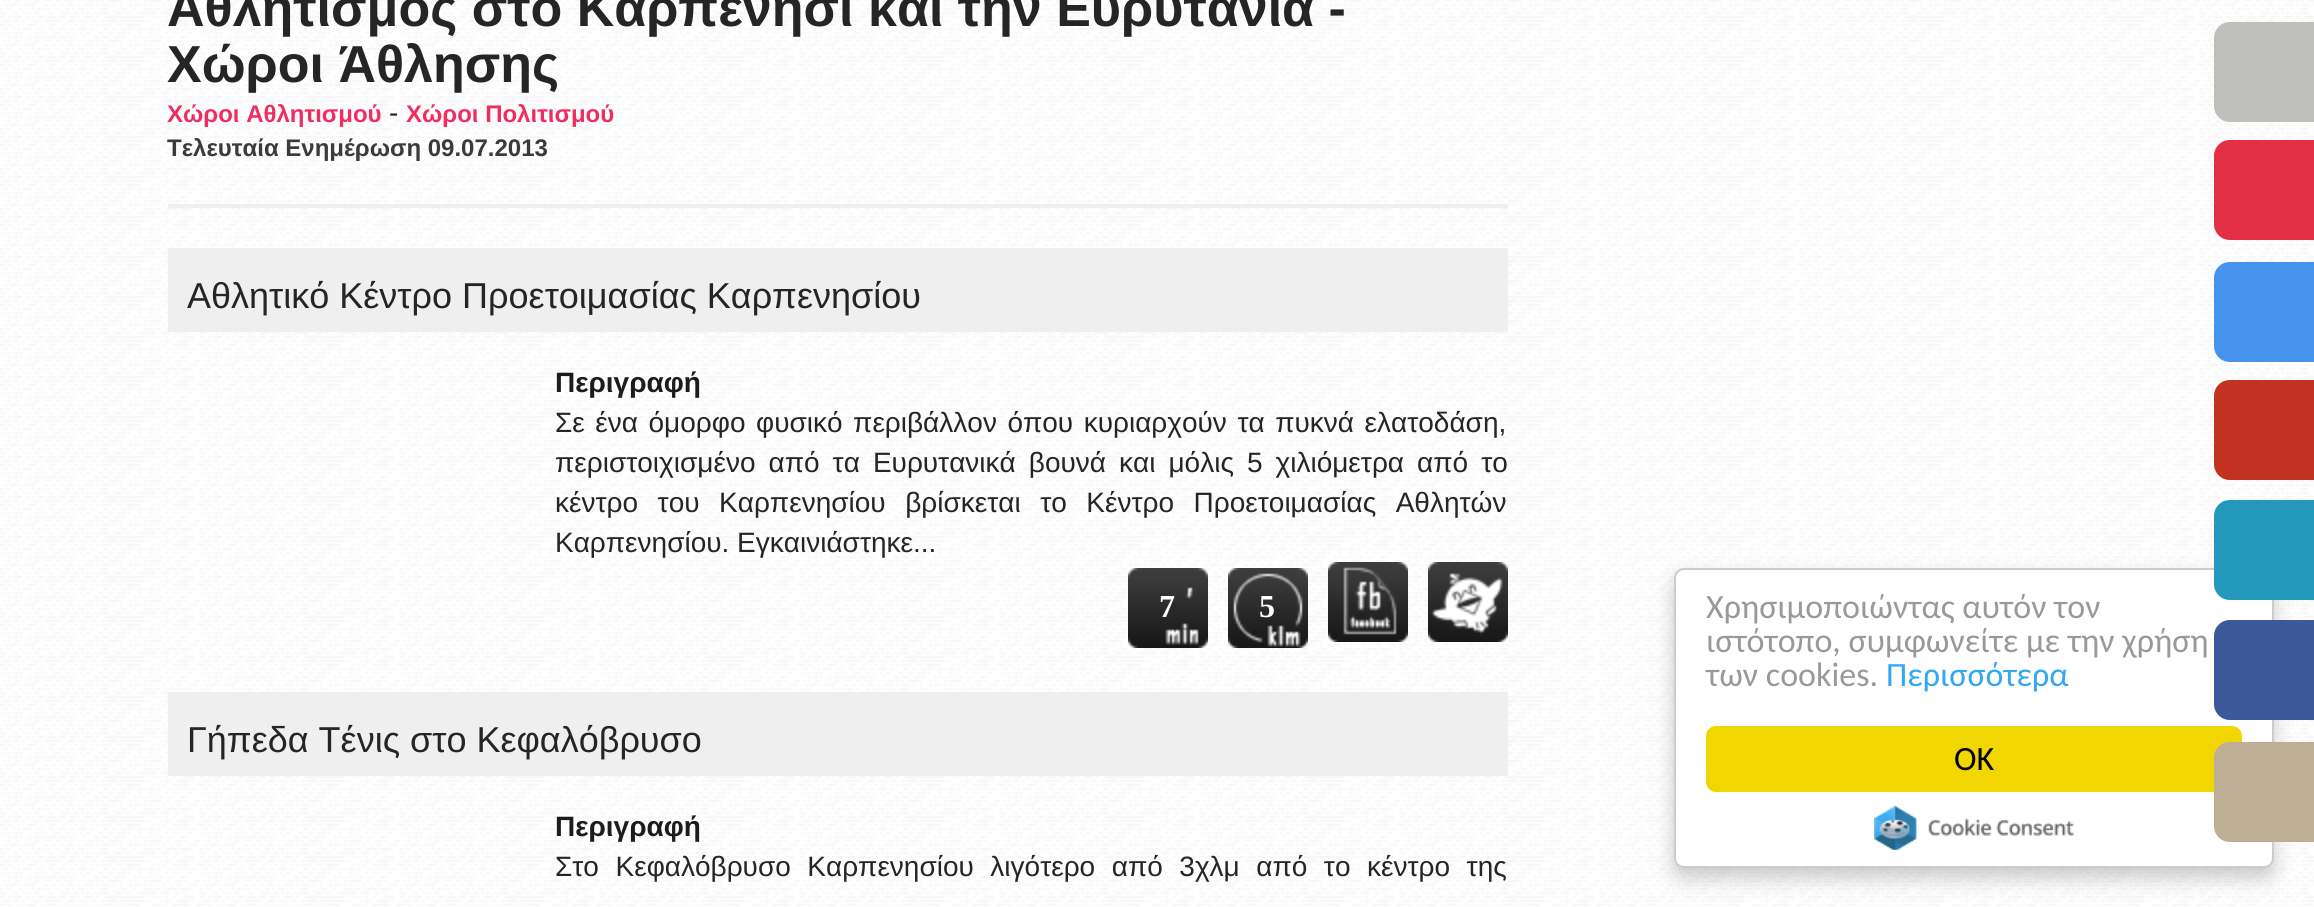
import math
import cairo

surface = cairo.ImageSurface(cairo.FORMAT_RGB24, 2314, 907)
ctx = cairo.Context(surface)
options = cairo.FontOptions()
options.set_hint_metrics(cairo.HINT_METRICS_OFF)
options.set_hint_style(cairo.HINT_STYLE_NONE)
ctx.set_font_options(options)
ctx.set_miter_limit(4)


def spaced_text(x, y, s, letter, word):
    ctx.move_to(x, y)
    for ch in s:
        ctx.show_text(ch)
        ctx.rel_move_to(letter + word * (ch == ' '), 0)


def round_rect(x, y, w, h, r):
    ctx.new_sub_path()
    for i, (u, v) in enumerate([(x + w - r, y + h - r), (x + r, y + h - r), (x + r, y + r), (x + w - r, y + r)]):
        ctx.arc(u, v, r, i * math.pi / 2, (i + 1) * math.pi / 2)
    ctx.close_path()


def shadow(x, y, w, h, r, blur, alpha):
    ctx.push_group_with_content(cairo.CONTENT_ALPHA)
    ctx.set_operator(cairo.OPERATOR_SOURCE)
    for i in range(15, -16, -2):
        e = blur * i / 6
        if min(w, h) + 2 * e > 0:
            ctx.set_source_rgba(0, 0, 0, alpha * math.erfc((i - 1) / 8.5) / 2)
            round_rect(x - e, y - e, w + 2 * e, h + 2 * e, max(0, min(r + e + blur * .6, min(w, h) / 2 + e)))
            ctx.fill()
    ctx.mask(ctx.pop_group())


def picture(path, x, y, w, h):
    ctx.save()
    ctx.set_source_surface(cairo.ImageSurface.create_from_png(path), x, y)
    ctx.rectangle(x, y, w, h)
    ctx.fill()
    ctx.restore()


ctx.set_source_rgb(1, 1, 1)
ctx.paint()
picture("img1.png", 0, 0, 2314, 906)
ctx.set_source_rgb(0.937, 0.937, 0.937)
ctx.rectangle(168, 204, 1340, 4)
ctx.fill()
ctx.select_font_face("Liberation Sans", cairo.FONT_SLANT_NORMAL, cairo.FONT_WEIGHT_BOLD)
ctx.set_font_size(52)
ctx.set_source_rgb(0.145, 0.145, 0.145)
ctx.move_to(167, 26)
ctx.show_text("Αθλητισμός στο Καρπενήσι και την Ευρυτανία -")
ctx.move_to(167, 82)
ctx.show_text("Χώροι Άθλησης")
ctx.set_font_size(24)
ctx.set_source_rgb(0.941, 0.176, 0.376)
ctx.move_to(167, 122)
ctx.show_text("Χώροι Αθλητισμού")
ctx.select_font_face("Liberation Sans")
ctx.set_font_size(28)
ctx.set_source_rgb(0.145, 0.145, 0.145)
ctx.move_to(389, 122)
ctx.show_text("-")
ctx.select_font_face("Liberation Sans", cairo.FONT_SLANT_NORMAL, cairo.FONT_WEIGHT_BOLD)
ctx.set_font_size(24)
ctx.set_source_rgb(0.941, 0.176, 0.376)
ctx.move_to(406, 122)
ctx.show_text("Χώροι Πολιτισμού")
ctx.set_source_rgb(0.231, 0.231, 0.231)
ctx.move_to(167, 156)
ctx.show_text("Τελευταία Ενημέρωση 09.07.2013")
ctx.set_source_rgb(0.937, 0.937, 0.937)
ctx.rectangle(168, 248, 1340, 84)
ctx.fill()
ctx.select_font_face("Liberation Sans")
ctx.set_font_size(36)
ctx.set_source_rgb(0.145, 0.145, 0.145)
ctx.move_to(187, 308)
ctx.show_text("Αθλητικό Κέντρο Προετοιμασίας Καρπενησίου")
ctx.select_font_face("Liberation Sans", cairo.FONT_SLANT_NORMAL, cairo.FONT_WEIGHT_BOLD)
ctx.set_font_size(28)
ctx.set_source_rgb(0.11, 0.11, 0.11)
ctx.move_to(555, 392)
ctx.show_text("Περιγραφή")
ctx.select_font_face("Liberation Sans")
ctx.set_source_rgb(0.145, 0.145, 0.145)
spaced_text(555, 432, "Σε ένα όμορφο φυσικό περιβάλλον όπου κυριαρχούν τα πυκνά ελατοδάση,", 0, 2.75)
spaced_text(555, 472, "περιστοιχισμένο από τα Ευρυτανικά βουνά και μόλις 5 χιλιόμετρα από το", 0, 5.25)
spaced_text(555, 512, "κέντρο του Καρπενησίου βρίσκεται το Κέντρο Προετοιμασίας Αθλητών", 0, 11.75)
ctx.move_to(555, 552)
ctx.show_text("Καρπενησίου. Εγκαινιάστηκε...")
picture("img2.png", 1128, 568, 80, 80)
ctx.select_font_face("Liberation Serif", cairo.FONT_SLANT_NORMAL, cairo.FONT_WEIGHT_BOLD)
ctx.set_font_size(32)
ctx.set_source_rgb(1, 1, 1)
ctx.move_to(1159, 617)
ctx.show_text("7")
picture("img3.png", 1228, 568, 80, 80)
ctx.move_to(1259, 617)
ctx.show_text("5")
picture("img4.png", 1328, 562, 80, 80)
picture("img5.png", 1428, 562, 80, 80)
ctx.set_source_rgb(0.937, 0.937, 0.937)
ctx.rectangle(168, 692, 1340, 84)
ctx.fill()
ctx.select_font_face("Liberation Sans")
ctx.set_font_size(36)
ctx.set_source_rgb(0.145, 0.145, 0.145)
ctx.move_to(187, 752)
ctx.show_text("Γήπεδα Τένις στο Κεφαλόβρυσο")
ctx.select_font_face("Liberation Sans", cairo.FONT_SLANT_NORMAL, cairo.FONT_WEIGHT_BOLD)
ctx.set_font_size(28)
ctx.set_source_rgb(0.11, 0.11, 0.11)
ctx.move_to(555, 836)
ctx.show_text("Περιγραφή")
ctx.select_font_face("Liberation Sans")
ctx.set_source_rgb(0.145, 0.145, 0.145)
spaced_text(555, 876, "Στο Κεφαλόβρυσο Καρπενησίου λιγότερο από 3χλμ από το κέντρο της", 0, 8.75)
ctx.set_source_rgb(0.749, 0.749, 0.737)
ctx.new_path()
ctx.move_to(2230, 22)
ctx.line_to(2314, 22)
ctx.line_to(2314, 122)
ctx.line_to(2230, 122)
ctx.curve_to(2221, 122, 2214, 115, 2214, 106)
ctx.line_to(2214, 38)
ctx.curve_to(2214, 29, 2221, 22, 2230, 22)
ctx.close_path()
ctx.fill()
ctx.set_source_rgb(0.89, 0.184, 0.267)
ctx.new_path()
ctx.move_to(2230, 140)
ctx.line_to(2314, 140)
ctx.line_to(2314, 240)
ctx.line_to(2230, 240)
ctx.curve_to(2221, 240, 2214, 233, 2214, 224)
ctx.line_to(2214, 156)
ctx.curve_to(2214, 147, 2221, 140, 2230, 140)
ctx.close_path()
ctx.fill()
ctx.set_source_rgb(0.271, 0.576, 0.918)
ctx.new_path()
ctx.move_to(2230, 262)
ctx.line_to(2314, 262)
ctx.line_to(2314, 362)
ctx.line_to(2230, 362)
ctx.curve_to(2221, 362, 2214, 355, 2214, 346)
ctx.line_to(2214, 278)
ctx.curve_to(2214, 269, 2221, 262, 2230, 262)
ctx.close_path()
ctx.fill()
ctx.set_source_rgb(0.757, 0.196, 0.129)
ctx.new_path()
ctx.move_to(2230, 380)
ctx.line_to(2314, 380)
ctx.line_to(2314, 480)
ctx.line_to(2230, 480)
ctx.curve_to(2221, 480, 2214, 473, 2214, 464)
ctx.line_to(2214, 396)
ctx.curve_to(2214, 387, 2221, 380, 2230, 380)
ctx.close_path()
ctx.fill()
ctx.set_source_rgb(0, 0, 0)
shadow(1674, 578, 600, 300, 10, 10, 0.2)
ctx.set_source_rgb(1, 1, 1)
round_rect(1675, 569, 598, 298, 9)
ctx.fill_preserve()
ctx.set_source_rgb(0.8, 0.8, 0.8)
ctx.stroke()
ctx.set_source_rgb(0.141, 0.596, 0.733)
ctx.new_path()
ctx.move_to(2230, 500)
ctx.line_to(2314, 500)
ctx.line_to(2314, 600)
ctx.line_to(2230, 600)
ctx.curve_to(2221, 600, 2214, 593, 2214, 584)
ctx.line_to(2214, 516)
ctx.curve_to(2214, 507, 2221, 500, 2230, 500)
ctx.close_path()
ctx.fill()
ctx.select_font_face("Carlito")
ctx.set_font_size(34)
ctx.set_source_rgb(0.6, 0.6, 0.6)
ctx.move_to(1706, 618)
ctx.show_text("Χρησιμοποιώντας αυτόν τον")
ctx.move_to(1706, 652)
ctx.show_text("ιστότοπο, συμφωνείτε με την χρήση")
ctx.move_to(1706, 686)
ctx.show_text("των cookies.")
ctx.set_source_rgb(0.192, 0.659, 0.941)
ctx.move_to(1886, 686)
ctx.show_text("Περισσότερα")
ctx.set_source_rgb(0.945, 0.839, 0)
round_rect(1706, 726, 536, 66, 10)
ctx.fill()
ctx.set_source_rgb(0, 0, 0)
ctx.move_to(1954, 770)
ctx.show_text("OK")
picture("img6.png", 1874, 806, 200, 44)
ctx.set_source_rgb(0.231, 0.349, 0.596)
ctx.new_path()
ctx.move_to(2230, 620)
ctx.line_to(2314, 620)
ctx.line_to(2314, 720)
ctx.line_to(2230, 720)
ctx.curve_to(2221, 720, 2214, 713, 2214, 704)
ctx.line_to(2214, 636)
ctx.curve_to(2214, 627, 2221, 620, 2230, 620)
ctx.close_path()
ctx.fill()
ctx.set_source_rgb(0.745, 0.682, 0.584)
ctx.new_path()
ctx.move_to(2230, 742)
ctx.line_to(2314, 742)
ctx.line_to(2314, 842)
ctx.line_to(2230, 842)
ctx.curve_to(2221, 842, 2214, 835, 2214, 826)
ctx.line_to(2214, 758)
ctx.curve_to(2214, 749, 2221, 742, 2230, 742)
ctx.close_path()
ctx.fill()
surface.write_to_png("page.png")
